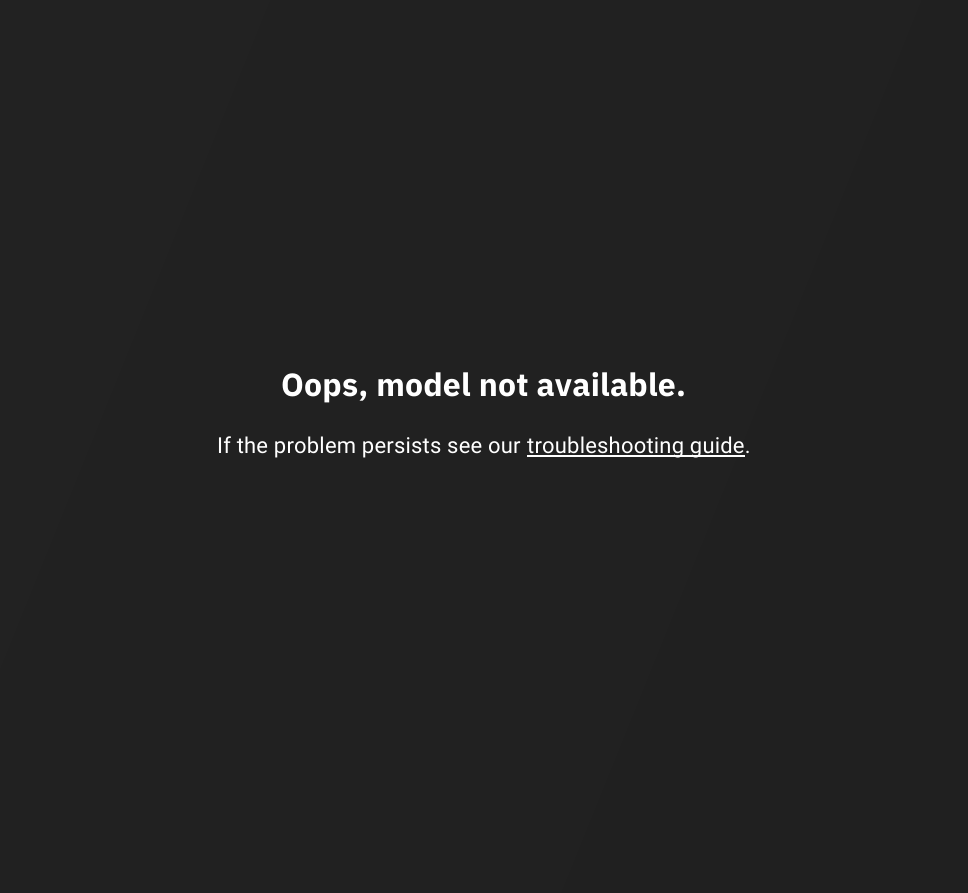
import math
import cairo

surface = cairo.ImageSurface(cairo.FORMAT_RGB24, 968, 893)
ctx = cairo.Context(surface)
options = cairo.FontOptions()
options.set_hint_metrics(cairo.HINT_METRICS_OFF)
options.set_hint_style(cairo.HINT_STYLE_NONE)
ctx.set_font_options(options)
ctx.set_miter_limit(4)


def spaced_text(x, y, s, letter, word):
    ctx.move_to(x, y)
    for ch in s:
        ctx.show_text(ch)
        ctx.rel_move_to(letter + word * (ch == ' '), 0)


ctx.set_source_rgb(1, 1, 1)
ctx.paint()
gradient = cairo.LinearGradient(-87, 216, 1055, 677)
gradient.add_color_stop_rgba(0, 0.133, 0.133, 0.133, 1)
gradient.add_color_stop_rgba(1, 0.125, 0.125, 0.125, 1)
ctx.set_source(gradient)
ctx.rectangle(0, 0, 968, 893)
ctx.fill()
ctx.select_font_face("IBM Plex Sans", cairo.FONT_SLANT_NORMAL, cairo.FONT_WEIGHT_BOLD)
ctx.set_font_size(32)
ctx.set_source_rgb(1, 1, 1)
spaced_text(281, 396, "Oops, model not available.", 0.2, 0)
ctx.select_font_face("Roboto")
ctx.set_font_size(22)
spaced_text(217, 453, "If the problem persists see our", 0.2, 0)
ctx.rectangle(527, 455, 218, 2)
ctx.fill()
spaced_text(527, 453, "troubleshooting guide.", 0.2, 0)
surface.write_to_png("page.png")
